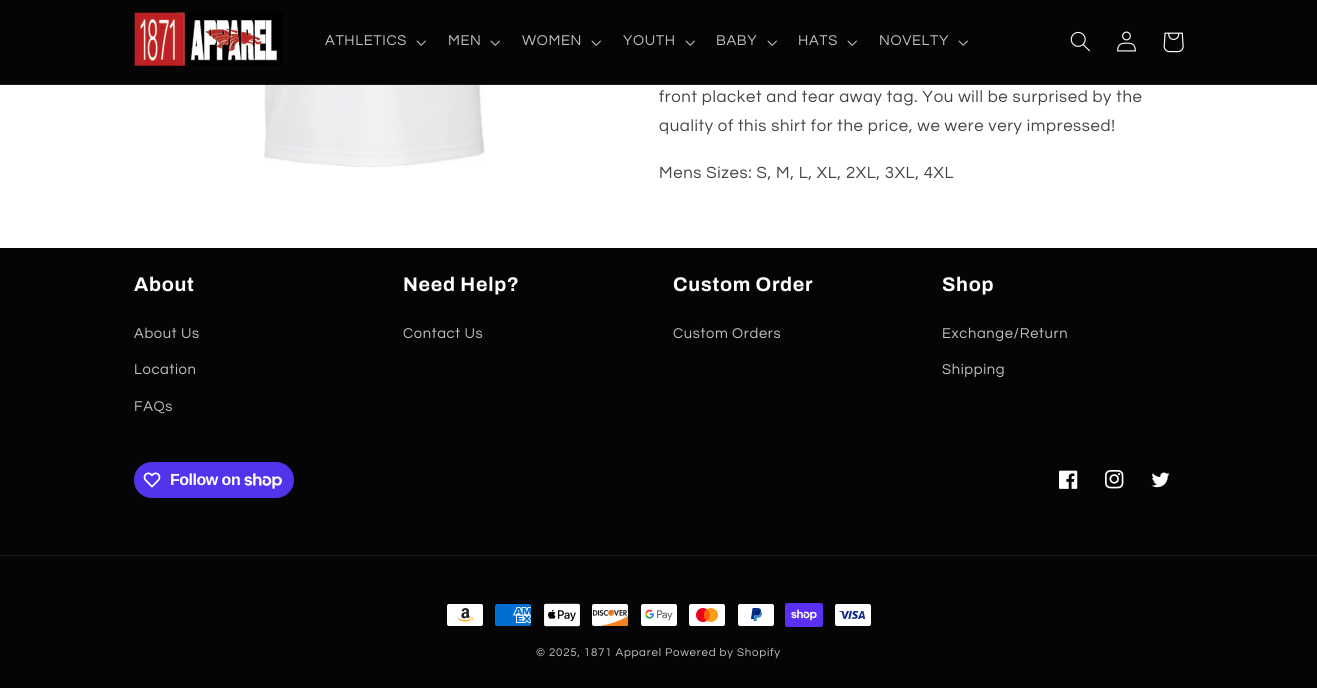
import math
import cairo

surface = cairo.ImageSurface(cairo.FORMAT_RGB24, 1317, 688)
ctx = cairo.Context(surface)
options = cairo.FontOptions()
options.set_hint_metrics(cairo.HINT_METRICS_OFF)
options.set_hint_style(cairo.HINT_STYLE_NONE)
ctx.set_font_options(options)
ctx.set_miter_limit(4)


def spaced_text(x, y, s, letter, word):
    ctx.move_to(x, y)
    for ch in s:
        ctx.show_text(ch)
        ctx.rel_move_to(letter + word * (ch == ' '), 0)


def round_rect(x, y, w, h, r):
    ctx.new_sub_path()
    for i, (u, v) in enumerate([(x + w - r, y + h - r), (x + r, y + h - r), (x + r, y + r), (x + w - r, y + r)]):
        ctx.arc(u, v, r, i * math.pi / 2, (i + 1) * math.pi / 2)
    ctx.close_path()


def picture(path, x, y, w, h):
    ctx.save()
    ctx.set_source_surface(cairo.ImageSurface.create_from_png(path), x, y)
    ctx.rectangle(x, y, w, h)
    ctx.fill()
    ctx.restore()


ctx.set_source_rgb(1, 1, 1)
ctx.paint()
ctx.set_source_rgb(0.02, 0.02, 0.02)
ctx.rectangle(0, 0, 1317, 84)
ctx.fill()
ctx.set_source_rgb(0.098, 0.098, 0.098)
ctx.rectangle(0, 84, 1317, 1)
ctx.fill()
picture("img1.png", 134, 12, 149, 54)
ctx.select_font_face("Questrial")
ctx.set_font_size(14.75)
ctx.set_source_rgb(0.757, 0.757, 0.757)
spaced_text(325, 45, "ATHLETICS", 0.63, 0)
picture("img2.png", 416, 40, 10, 6)
spaced_text(448, 45, "MEN", 0.63, 0)
picture("img2.png", 490, 40, 10, 6)
spaced_text(522, 45, "WOMEN", 0.63, 0)
picture("img2.png", 591, 40, 10, 6)
spaced_text(623, 45, "YOUTH", 0.63, 0)
picture("img2.png", 685, 40, 10, 6)
spaced_text(716, 45, "BABY", 0.63, 0)
picture("img2.png", 767, 40, 10, 6)
spaced_text(798, 45, "HATS", 0.63, 0)
picture("img2.png", 847, 40, 10, 6)
spaced_text(879, 45, "NOVELTY", 0.63, 0)
picture("img2.png", 958, 40, 10, 6)
picture("img3.png", 1070, 31, 20, 21)
picture("img4.png", 1117, 31, 19, 21)
picture("img5.png", 1163, 32, 21, 21)
picture("img6.png", 264, 85, 221, 83)
ctx.set_font_size(16.8)
ctx.set_source_rgb(0.267, 0.267, 0.267)
spaced_text(659, 102, "front placket and tear away tag. You will be surprised by the", 0.63, 0)
spaced_text(659, 131, "quality of this shirt for the price, we were very impressed!", 0.63, 0)
spaced_text(659, 178, "Mens Sizes: S, M, L, XL, 2XL, 3XL, 4XL", 0.63, 0)
ctx.set_source_rgb(0.02, 0.02, 0.02)
ctx.rectangle(0, 248, 1317, 440)
ctx.fill()
ctx.select_font_face("Archivo", cairo.FONT_SLANT_NORMAL, cairo.FONT_WEIGHT_BOLD)
ctx.set_font_size(19.75)
ctx.set_source_rgb(1, 1, 1)
spaced_text(134, 291, "About", 0.7, 0)
ctx.select_font_face("Questrial")
ctx.set_font_size(14.75)
ctx.set_source_rgb(0.757, 0.757, 0.757)
spaced_text(134, 338, "About Us", 0.63, 0)
spaced_text(134, 374, "Location", 0.63, 0)
spaced_text(134, 411, "FAQs", 0.63, 0)
ctx.select_font_face("Archivo", cairo.FONT_SLANT_NORMAL, cairo.FONT_WEIGHT_BOLD)
ctx.set_font_size(19.75)
ctx.set_source_rgb(1, 1, 1)
spaced_text(403, 291, "Need Help?", 0.7, 0)
ctx.select_font_face("Questrial")
ctx.set_font_size(14.75)
ctx.set_source_rgb(0.757, 0.757, 0.757)
spaced_text(403, 338, "Contact Us", 0.63, 0)
ctx.select_font_face("Archivo", cairo.FONT_SLANT_NORMAL, cairo.FONT_WEIGHT_BOLD)
ctx.set_font_size(19.75)
ctx.set_source_rgb(1, 1, 1)
spaced_text(673, 291, "Custom Order", 0.7, 0)
ctx.select_font_face("Questrial")
ctx.set_font_size(14.75)
ctx.set_source_rgb(0.757, 0.757, 0.757)
spaced_text(673, 338, "Custom Orders", 0.63, 0)
ctx.select_font_face("Archivo", cairo.FONT_SLANT_NORMAL, cairo.FONT_WEIGHT_BOLD)
ctx.set_font_size(19.75)
ctx.set_source_rgb(1, 1, 1)
spaced_text(942, 291, "Shop", 0.7, 0)
ctx.select_font_face("Questrial")
ctx.set_font_size(14.75)
ctx.set_source_rgb(0.757, 0.757, 0.757)
spaced_text(942, 338, "Exchange/Return", 0.63, 0)
spaced_text(942, 374, "Shipping", 0.63, 0)
ctx.set_source_rgb(0.329, 0.2, 0.922)
round_rect(134, 462, 160, 36, 18)
ctx.fill()
picture("img7.png", 143, 472, 18, 16)
ctx.select_font_face("Liberation Sans", cairo.FONT_SLANT_NORMAL, cairo.FONT_WEIGHT_BOLD)
ctx.set_font_size(16)
ctx.set_source_rgb(1, 1, 1)
spaced_text(170, 485, "Follow on", -0.5, 0)
picture("img8.png", 244, 473, 38, 16)
picture("img9.png", 1059, 470, 19, 19)
picture("img10.png", 1105, 470, 19, 19)
picture("img11.png", 1151, 472, 19, 16)
ctx.set_source_rgb(0.098, 0.098, 0.098)
ctx.rectangle(0, 555, 1317, 1)
ctx.fill()
picture("img12.png", 447, 604, 36, 22)
picture("img13.png", 495, 604, 36, 22)
picture("img14.png", 544, 603, 36, 24)
picture("img15.png", 592, 604, 37, 22)
picture("img16.png", 641, 604, 36, 22)
picture("img17.png", 689, 604, 36, 22)
picture("img18.png", 738, 604, 36, 22)
picture("img19.png", 785, 603, 38, 24)
picture("img20.png", 835, 604, 36, 22)
ctx.select_font_face("Questrial")
ctx.set_font_size(11.55)
ctx.set_source_rgb(0.757, 0.757, 0.757)
spaced_text(536, 656, "© 2025, 1871 Apparel Powered by Shopify", 0.75, 0)
surface.write_to_png("page.png")
